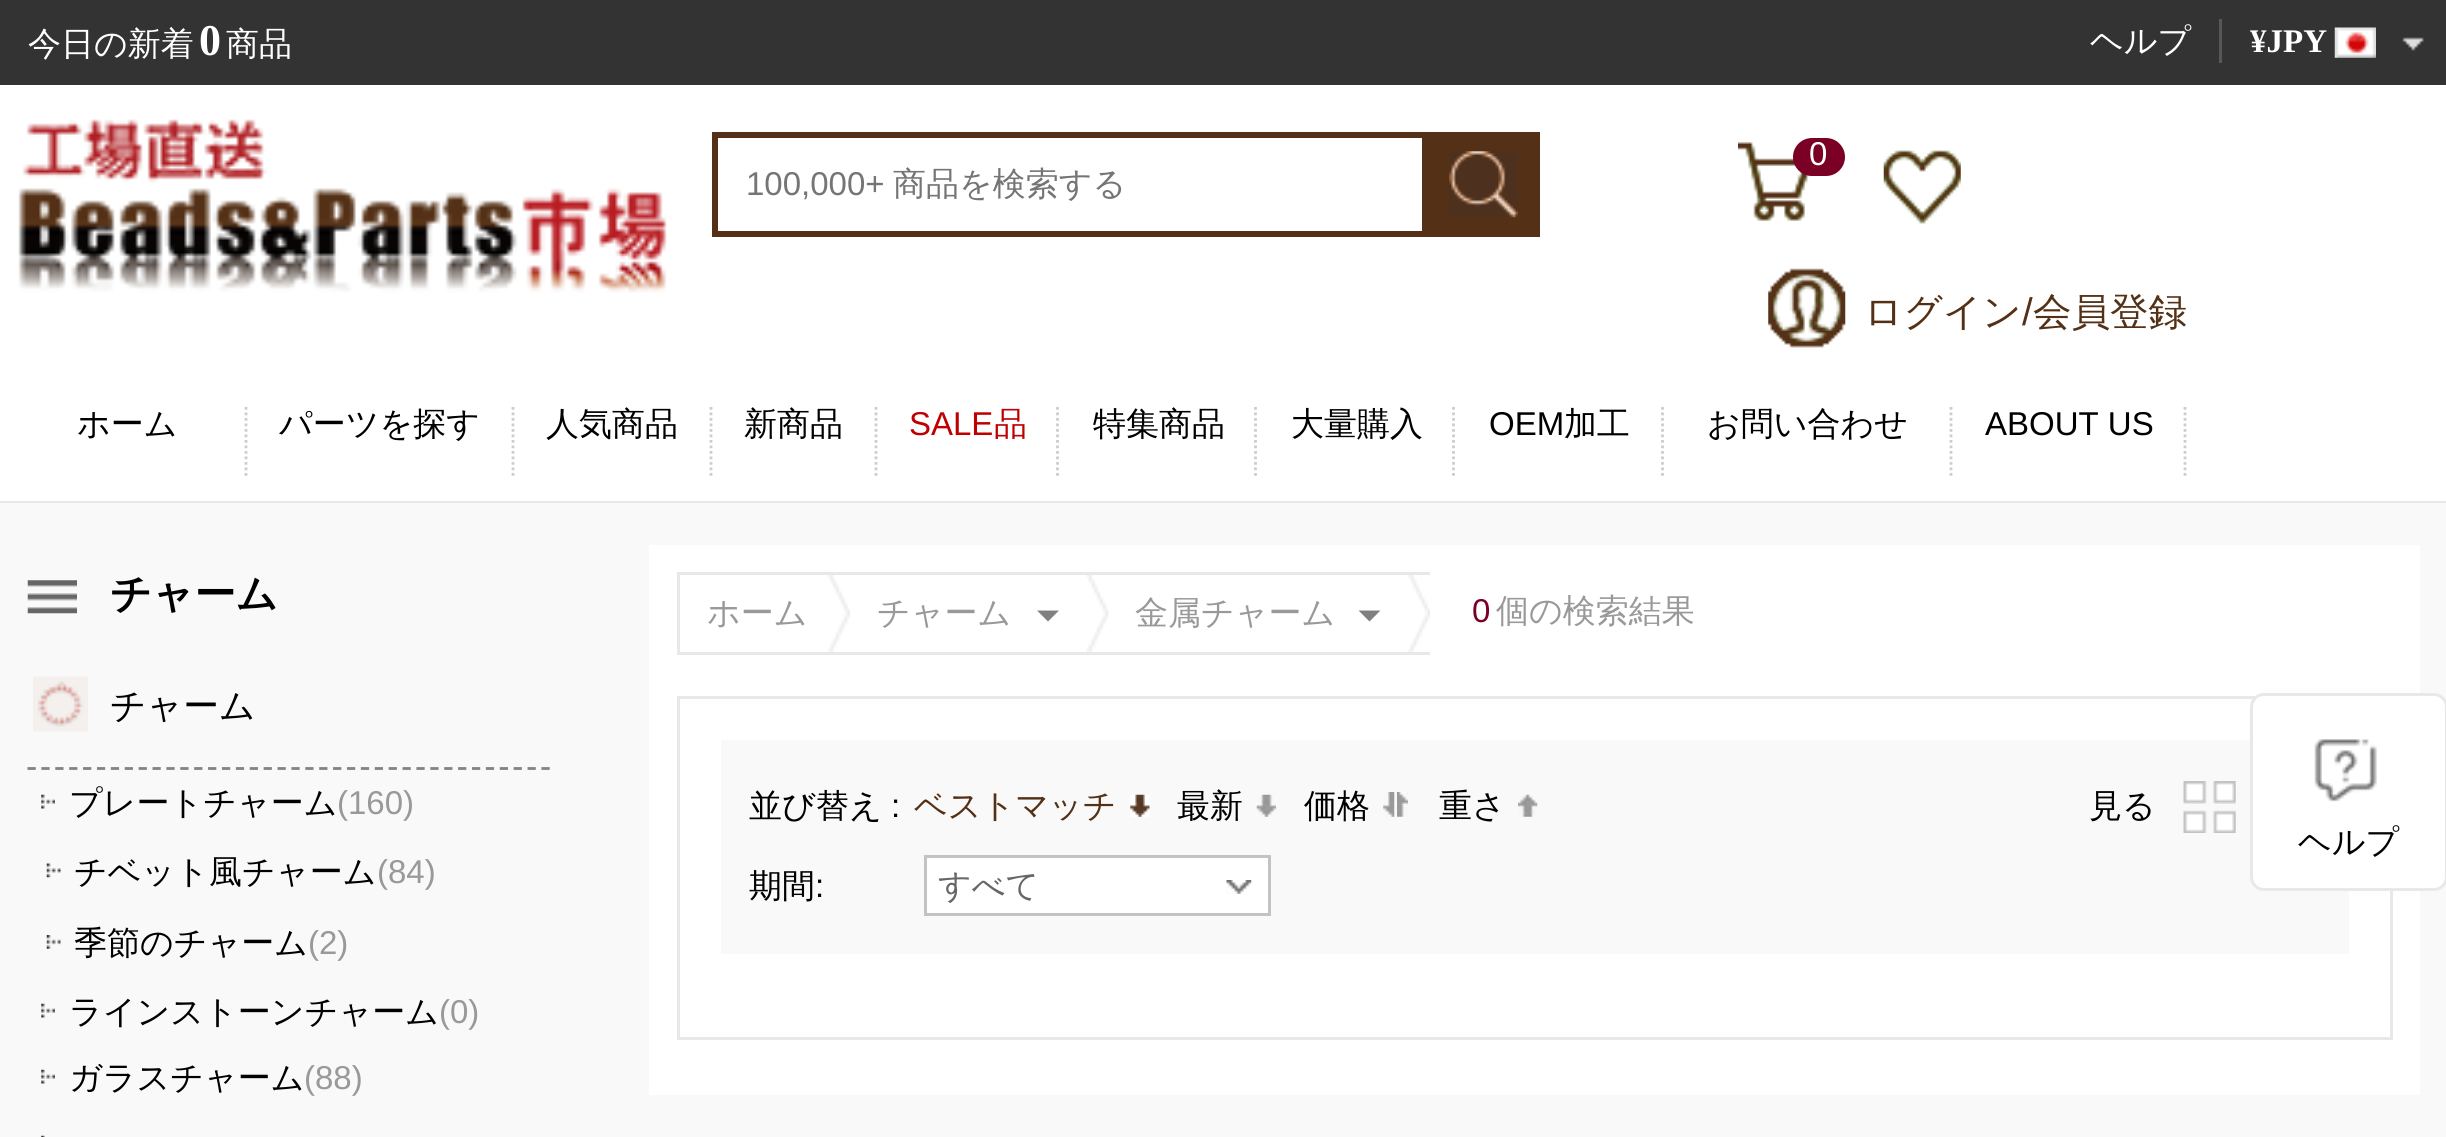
import math
import cairo

surface = cairo.ImageSurface(cairo.FORMAT_RGB24, 2446, 1137)
ctx = cairo.Context(surface)
options = cairo.FontOptions()
options.set_hint_metrics(cairo.HINT_METRICS_OFF)
options.set_hint_style(cairo.HINT_STYLE_NONE)
ctx.set_font_options(options)
ctx.set_miter_limit(4)


def round_rect(x, y, w, h, r):
    ctx.new_sub_path()
    for i, (u, v) in enumerate([(x + w - r, y + h - r), (x + r, y + h - r), (x + r, y + r), (x + w - r, y + r)]):
        ctx.arc(u, v, r, i * math.pi / 2, (i + 1) * math.pi / 2)
    ctx.close_path()


def picture(path, x, y, w, h):
    ctx.save()
    ctx.set_source_surface(cairo.ImageSurface.create_from_png(path), x, y)
    ctx.rectangle(x, y, w, h)
    ctx.fill()
    ctx.restore()


ctx.set_source_rgb(0.2, 0.2, 0.2)
ctx.paint()
ctx.select_font_face("WenQuanYi Zen Hei Medium")
ctx.set_font_size(33)
ctx.set_source_rgb(1, 1, 1)
ctx.move_to(28, 55)
ctx.show_text("今日の新着")
ctx.select_font_face("Liberation Serif", cairo.FONT_SLANT_NORMAL, cairo.FONT_WEIGHT_BOLD)
ctx.set_font_size(44)
ctx.move_to(199, 55)
ctx.show_text("0")
ctx.select_font_face("WenQuanYi Zen Hei Medium")
ctx.set_font_size(33)
ctx.move_to(226, 55)
ctx.show_text("商品")
ctx.move_to(2090, 52)
ctx.show_text("ヘルプ")
picture("img1.png", 2402, 37, 22, 14)
ctx.set_source_rgb(0.341, 0.341, 0.341)
ctx.rectangle(2219, 19, 3, 44)
ctx.fill()
ctx.select_font_face("Liberation Serif", cairo.FONT_SLANT_NORMAL, cairo.FONT_WEIGHT_BOLD)
ctx.set_source_rgb(1, 1, 1)
ctx.move_to(2250, 52)
ctx.show_text("¥JPY")
picture("img2.png", 2334, 27, 42, 31)
ctx.rectangle(0, 85, 2446, 416)
ctx.fill()
ctx.set_source_rgb(0.91, 0.91, 0.91)
ctx.rectangle(0, 501, 2446, 2)
ctx.fill()
picture("img3.png", 18, 119, 649, 174)
ctx.set_source_rgb(0.329, 0.192, 0.086)
ctx.rectangle(712, 132, 710, 6)
ctx.fill()
ctx.rectangle(712, 231, 710, 6)
ctx.fill()
ctx.rectangle(712, 132, 6, 105)
ctx.fill()
ctx.select_font_face("Liberation Sans")
ctx.set_source_rgb(0.459, 0.459, 0.459)
ctx.move_to(746, 195)
ctx.show_text("100,000+")
ctx.select_font_face("WenQuanYi Zen Hei Medium")
ctx.move_to(893, 195)
ctx.show_text("商品を検索する")
ctx.set_source_rgb(0.329, 0.192, 0.086)
ctx.rectangle(1422, 132, 118, 105)
ctx.fill()
picture("img4.png", 1449, 151, 69, 67)
picture("img5.png", 1738, 142, 73, 79)
ctx.set_source_rgb(0.478, 0, 0.149)
round_rect(1793, 138, 52, 38, 19)
ctx.fill()
ctx.select_font_face("Liberation Sans")
ctx.set_source_rgb(1, 1, 1)
ctx.move_to(1809, 165)
ctx.show_text("0")
picture("img6.png", 1883, 150, 78, 74)
picture("img7.png", 1768, 268, 78, 80)
ctx.select_font_face("WenQuanYi Zen Hei Medium")
ctx.set_font_size(38.5)
ctx.set_source_rgb(0.329, 0.192, 0.086)
ctx.move_to(1864, 325)
ctx.show_text("ログイン")
ctx.select_font_face("Liberation Sans")
ctx.move_to(2022, 325)
ctx.show_text("/")
ctx.select_font_face("WenQuanYi Zen Hei Medium")
ctx.move_to(2033, 325)
ctx.show_text("会員登録")
ctx.set_font_size(33)
ctx.set_source_rgb(0, 0, 0)
ctx.move_to(77, 435)
ctx.show_text("ホーム")
ctx.new_path()
ctx.move_to(246, 407)
ctx.line_to(246, 476)
ctx.set_source_rgb(0.804, 0.804, 0.804)
ctx.set_line_width(2.8)
ctx.set_dash([2.75, 2.75])
ctx.stroke()
ctx.set_source_rgb(0, 0, 0)
ctx.move_to(279, 435)
ctx.show_text("パーツを探す")
ctx.new_path()
ctx.move_to(513, 407)
ctx.line_to(513, 476)
ctx.set_source_rgb(0.804, 0.804, 0.804)
ctx.stroke()
ctx.set_source_rgb(0, 0, 0)
ctx.move_to(546, 435)
ctx.show_text("人気商品")
ctx.new_path()
ctx.move_to(711, 407)
ctx.line_to(711, 476)
ctx.set_source_rgb(0.804, 0.804, 0.804)
ctx.stroke()
ctx.set_source_rgb(0, 0, 0)
ctx.move_to(744, 435)
ctx.show_text("新商品")
ctx.new_path()
ctx.move_to(876, 407)
ctx.line_to(876, 476)
ctx.set_source_rgb(0.804, 0.804, 0.804)
ctx.stroke()
ctx.select_font_face("Liberation Sans")
ctx.set_source_rgb(0.753, 0, 0)
ctx.move_to(909, 435)
ctx.show_text("SALE")
ctx.select_font_face("WenQuanYi Zen Hei Medium")
ctx.move_to(994, 435)
ctx.show_text("品")
ctx.new_path()
ctx.move_to(1057.5, 407)
ctx.line_to(1057.5, 476)
ctx.set_source_rgb(0.804, 0.804, 0.804)
ctx.stroke()
ctx.set_source_rgb(0, 0, 0)
ctx.move_to(1093, 435)
ctx.show_text("特集商品")
ctx.new_path()
ctx.move_to(1255.5, 407)
ctx.line_to(1255.5, 476)
ctx.set_source_rgb(0.804, 0.804, 0.804)
ctx.stroke()
ctx.set_source_rgb(0, 0, 0)
ctx.move_to(1291, 435)
ctx.show_text("大量購入")
ctx.new_path()
ctx.move_to(1453.5, 407)
ctx.line_to(1453.5, 476)
ctx.set_source_rgb(0.804, 0.804, 0.804)
ctx.stroke()
ctx.select_font_face("Liberation Sans")
ctx.set_source_rgb(0, 0, 0)
ctx.move_to(1489, 435)
ctx.show_text("OEM")
ctx.select_font_face("WenQuanYi Zen Hei Medium")
ctx.move_to(1564, 435)
ctx.show_text("加工")
ctx.new_path()
ctx.move_to(1662.5, 407)
ctx.line_to(1662.5, 476)
ctx.set_source_rgb(0.804, 0.804, 0.804)
ctx.stroke()
ctx.set_source_rgb(0, 0, 0)
ctx.move_to(1707, 435)
ctx.show_text("お問い合わせ")
ctx.new_path()
ctx.move_to(1951, 407)
ctx.line_to(1951, 476)
ctx.set_source_rgb(0.804, 0.804, 0.804)
ctx.stroke()
ctx.select_font_face("Liberation Sans")
ctx.set_source_rgb(0, 0, 0)
ctx.move_to(1985, 435)
ctx.show_text("ABOUT US")
ctx.new_path()
ctx.move_to(2185, 407)
ctx.line_to(2185, 476)
ctx.set_source_rgb(0.804, 0.804, 0.804)
ctx.stroke()
ctx.set_source_rgb(0.973, 0.973, 0.973)
ctx.rectangle(0, 503, 2446, 634)
ctx.fill()
picture("img8.png", 27, 580, 50, 34)
ctx.select_font_face("WenQuanYi Zen Hei", cairo.FONT_SLANT_NORMAL, cairo.FONT_WEIGHT_BOLD)
ctx.set_font_size(41.25)
ctx.set_source_rgb(0, 0, 0)
ctx.move_to(110, 608)
ctx.show_text("チャーム")
ctx.new_path()
ctx.move_to(27.5, 768.5)
ctx.line_to(550, 768.5)
ctx.set_source_rgb(0.514, 0.514, 0.514)
ctx.set_dash([8.25, 5.64])
ctx.stroke()
picture("img9.png", 33, 676, 55, 56)
ctx.select_font_face("WenQuanYi Zen Hei Medium")
ctx.set_font_size(35.75)
ctx.set_source_rgb(0, 0, 0)
ctx.move_to(110, 718)
ctx.show_text("チャーム")
picture("img10.png", 41, 794, 14, 15)
ctx.set_font_size(33)
ctx.move_to(69, 814)
ctx.show_text("プレートチャーム")
ctx.select_font_face("Liberation Sans")
ctx.set_source_rgb(0.6, 0.6, 0.6)
ctx.move_to(337, 814)
ctx.show_text("(160)")
picture("img11.png", 46, 863, 15, 15)
ctx.select_font_face("WenQuanYi Zen Hei Medium")
ctx.set_source_rgb(0, 0, 0)
ctx.move_to(74, 883)
ctx.show_text("チベット風チャーム")
ctx.select_font_face("Liberation Sans")
ctx.set_source_rgb(0.6, 0.6, 0.6)
ctx.move_to(377, 883)
ctx.show_text("(84)")
picture("img12.png", 46, 935, 15, 14)
ctx.select_font_face("WenQuanYi Zen Hei Medium")
ctx.set_source_rgb(0, 0, 0)
ctx.move_to(74, 954)
ctx.show_text("季節のチャーム")
ctx.select_font_face("Liberation Sans")
ctx.set_source_rgb(0.6, 0.6, 0.6)
ctx.move_to(308, 954)
ctx.show_text("(2)")
picture("img10.png", 41, 1003, 14, 15)
ctx.select_font_face("WenQuanYi Zen Hei Medium")
ctx.set_source_rgb(0, 0, 0)
ctx.move_to(69, 1023)
ctx.show_text("ラインストーンチャーム")
ctx.select_font_face("Liberation Sans")
ctx.set_source_rgb(0.6, 0.6, 0.6)
ctx.move_to(439, 1023)
ctx.show_text("(0)")
picture("img10.png", 41, 1069, 14, 15)
ctx.select_font_face("WenQuanYi Zen Hei Medium")
ctx.set_source_rgb(0, 0, 0)
ctx.move_to(69, 1089)
ctx.show_text("ガラスチャーム")
ctx.select_font_face("Liberation Sans")
ctx.set_source_rgb(0.6, 0.6, 0.6)
ctx.move_to(304, 1089)
ctx.show_text("(88)")
picture("img13.png", 41, 1135, 4, 2)
ctx.set_source_rgb(1, 1, 1)
ctx.rectangle(649, 545, 1771, 550)
ctx.fill()
picture("img14.png", 828, 575, 22, 77)
ctx.set_source_rgb(0.91, 0.91, 0.91)
ctx.rectangle(677, 572, 753, 3)
ctx.fill()
ctx.rectangle(677, 652, 753, 3)
ctx.fill()
ctx.rectangle(677, 572, 3, 83)
ctx.fill()
ctx.select_font_face("WenQuanYi Zen Hei Medium")
ctx.set_source_rgb(0.6, 0.6, 0.6)
ctx.move_to(707, 624)
ctx.show_text("ホーム")
picture("img15.png", 1086, 575, 23, 77)
ctx.move_to(877, 624)
ctx.show_text("チャーム")
ctx.set_source_rgb(0.502, 0.502, 0.502)
ctx.new_path()
ctx.move_to(1037, 610.5)
ctx.line_to(1059, 610.5)
ctx.line_to(1048, 621.5)
ctx.close_path()
ctx.fill()
picture("img16.png", 1408, 575, 22, 77)
ctx.set_source_rgb(0.6, 0.6, 0.6)
ctx.move_to(1135, 624)
ctx.show_text("金属チャーム")
ctx.set_source_rgb(0.502, 0.502, 0.502)
ctx.new_path()
ctx.move_to(1358.5, 610.5)
ctx.line_to(1380.5, 610.5)
ctx.line_to(1369.5, 621.5)
ctx.close_path()
ctx.fill()
ctx.select_font_face("Liberation Sans")
ctx.set_source_rgb(0.478, 0, 0.149)
ctx.move_to(1472, 622)
ctx.show_text("0")
ctx.select_font_face("WenQuanYi Zen Hei Medium")
ctx.set_source_rgb(0.6, 0.6, 0.6)
ctx.move_to(1496, 622)
ctx.show_text("個の検索結果")
ctx.rectangle(678.5, 697.5, 1713, 341)
ctx.set_source_rgb(0.91, 0.91, 0.91)
ctx.set_line_width(3)
ctx.set_dash([])
ctx.stroke()
ctx.set_source_rgb(0.973, 0.973, 0.973)
ctx.rectangle(721, 740, 1628, 214)
ctx.fill()
ctx.set_source_rgb(0, 0, 0)
ctx.move_to(749, 817)
ctx.show_text("並び替え")
ctx.select_font_face("Liberation Sans")
ctx.move_to(891, 817)
ctx.show_text(":")
ctx.select_font_face("WenQuanYi Zen Hei Medium")
ctx.set_source_rgb(0.329, 0.192, 0.086)
ctx.move_to(914, 817)
ctx.show_text("ベストマッチ")
picture("img17.png", 1130, 794, 20, 23)
ctx.set_source_rgb(0, 0, 0)
ctx.move_to(1177, 817)
ctx.show_text("最新")
picture("img18.png", 1256, 794, 20, 23)
ctx.move_to(1304, 817)
ctx.show_text("価格")
picture("img19.png", 1383, 792, 12, 25)
picture("img20.png", 1397, 792, 11, 25)
ctx.move_to(1439, 817)
ctx.show_text("重さ")
picture("img21.png", 1518, 794, 20, 23)
ctx.move_to(2089, 817)
ctx.show_text("見る")
picture("img22.png", 2183, 781, 53, 52)
ctx.move_to(749, 897)
ctx.show_text("期間")
ctx.select_font_face("Liberation Sans")
ctx.move_to(815, 897)
ctx.show_text(":")
ctx.set_source_rgb(1, 1, 1)
ctx.rectangle(925.5, 856.5, 344, 58)
ctx.fill_preserve()
ctx.set_source_rgb(0.765, 0.765, 0.765)
ctx.stroke()
ctx.select_font_face("WenQuanYi Zen Hei Medium")
ctx.set_source_rgb(0.4, 0.4, 0.4)
ctx.move_to(938, 897)
ctx.show_text("すべて")
picture("img23.png", 1226, 880, 26, 14)
ctx.set_source_rgb(1, 1, 1)
round_rect(2251.5, 694.5, 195, 195, 12.5)
ctx.fill_preserve()
ctx.set_source_rgb(0.91, 0.91, 0.91)
ctx.stroke()
picture("img24.png", 2314, 739, 63, 63)
ctx.set_source_rgb(0, 0, 0)
ctx.move_to(2298, 853)
ctx.show_text("ヘルプ")
surface.write_to_png("page.png")
